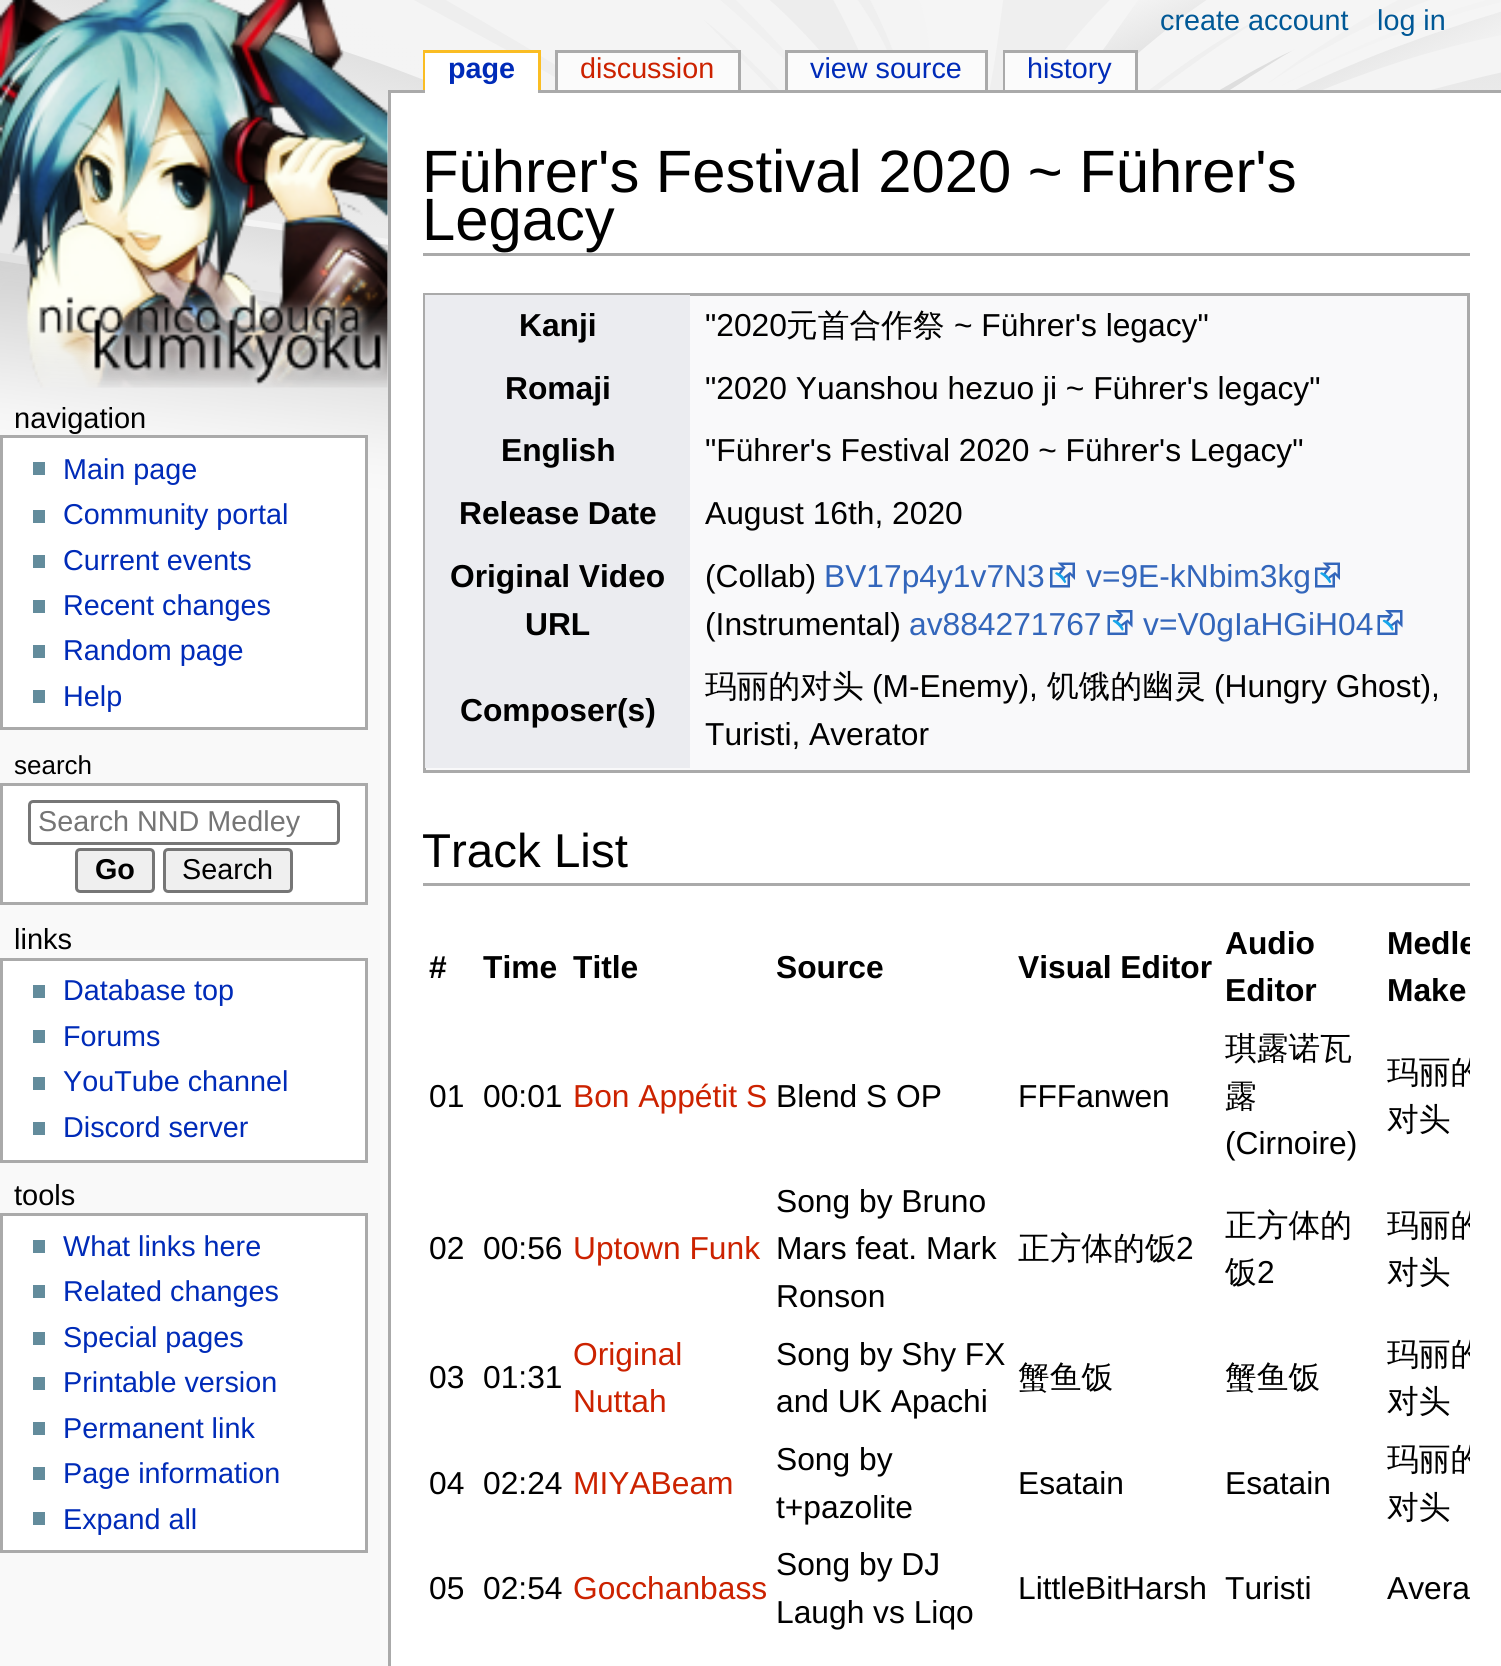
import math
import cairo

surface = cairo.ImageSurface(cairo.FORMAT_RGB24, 1501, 1666)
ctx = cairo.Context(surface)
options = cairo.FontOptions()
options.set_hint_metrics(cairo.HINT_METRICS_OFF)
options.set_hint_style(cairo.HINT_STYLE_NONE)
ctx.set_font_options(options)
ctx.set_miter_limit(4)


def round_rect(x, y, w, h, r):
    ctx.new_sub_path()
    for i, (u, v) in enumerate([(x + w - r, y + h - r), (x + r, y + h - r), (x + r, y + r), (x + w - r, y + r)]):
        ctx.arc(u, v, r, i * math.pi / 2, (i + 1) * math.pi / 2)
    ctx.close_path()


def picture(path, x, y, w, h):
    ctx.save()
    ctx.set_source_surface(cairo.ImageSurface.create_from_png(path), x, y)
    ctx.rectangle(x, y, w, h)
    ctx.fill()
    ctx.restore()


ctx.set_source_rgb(0.976, 0.976, 0.976)
ctx.paint()
picture("img1.png", 0, 0, 1501, 525)
picture("img2.png", 0, 0, 388, 388)
ctx.select_font_face("Liberation Sans")
ctx.set_font_size(28.75)
ctx.set_source_rgb(0, 0.345, 0.588)
ctx.move_to(1160, 30)
ctx.show_text("create account")
ctx.move_to(1377, 30)
ctx.show_text("log in")
ctx.set_source_rgb(0.98, 0.741, 0.137)
ctx.rectangle(423, 50, 117, 3)
ctx.fill()
ctx.rectangle(423, 50, 3, 40)
ctx.fill()
ctx.set_source_rgb(0.667, 0.667, 0.667)
ctx.rectangle(388, 90, 1113, 3)
ctx.fill()
ctx.set_source_rgb(1, 1, 1)
ctx.rectangle(425, 53, 113, 40)
ctx.fill()
ctx.select_font_face("Liberation Sans", cairo.FONT_SLANT_NORMAL, cairo.FONT_WEIGHT_BOLD)
ctx.set_source_rgb(0, 0.169, 0.722)
ctx.move_to(448, 78)
ctx.show_text("page")
ctx.set_source_rgb(0.98, 0.741, 0.137)
ctx.rectangle(538, 50, 3, 40)
ctx.fill()
ctx.set_source_rgb(0.984, 0.984, 0.984)
ctx.rectangle(558, 53, 180, 37)
ctx.fill()
ctx.select_font_face("Liberation Sans")
ctx.set_source_rgb(0.8, 0.133, 0)
ctx.move_to(580, 78)
ctx.show_text("discussion")
ctx.set_source_rgb(0.667, 0.667, 0.667)
ctx.rectangle(555, 50, 185, 3)
ctx.fill()
ctx.rectangle(738, 50, 3, 40)
ctx.fill()
ctx.rectangle(555, 50, 3, 40)
ctx.fill()
ctx.set_source_rgb(0.984, 0.984, 0.984)
ctx.rectangle(788, 53, 197, 37)
ctx.fill()
ctx.set_source_rgb(0, 0.169, 0.722)
ctx.move_to(810, 78)
ctx.show_text("view source")
ctx.set_source_rgb(0.667, 0.667, 0.667)
ctx.rectangle(785, 50, 203, 3)
ctx.fill()
ctx.rectangle(985, 50, 3, 40)
ctx.fill()
ctx.rectangle(785, 50, 3, 40)
ctx.fill()
ctx.rectangle(1003, 50, 135, 3)
ctx.fill()
ctx.rectangle(1003, 50, 3, 40)
ctx.fill()
ctx.set_source_rgb(0.984, 0.984, 0.984)
ctx.rectangle(1005, 53, 130, 37)
ctx.fill()
ctx.set_source_rgb(0, 0.169, 0.722)
ctx.move_to(1027, 78)
ctx.show_text("history")
ctx.set_source_rgb(0.667, 0.667, 0.667)
ctx.rectangle(1135, 50, 3, 40)
ctx.fill()
ctx.set_font_size(29)
ctx.set_source_rgb(0, 0, 0)
ctx.move_to(14, 428)
ctx.show_text("navigation")
ctx.set_source_rgb(1, 1, 1)
ctx.rectangle(1.5, 436.5, 365, 292)
ctx.fill_preserve()
ctx.set_source_rgb(0.667, 0.667, 0.667)
ctx.set_line_width(3)
ctx.stroke()
ctx.set_source_rgb(0.388, 0.549, 0.612)
ctx.rectangle(33, 462, 12, 13)
ctx.fill()
ctx.set_font_size(28.75)
ctx.set_source_rgb(0, 0.169, 0.722)
ctx.move_to(63, 479)
ctx.show_text("Main page")
ctx.set_source_rgb(0.388, 0.549, 0.612)
ctx.rectangle(33, 510, 12, 13)
ctx.fill()
ctx.set_source_rgb(0, 0.169, 0.722)
ctx.move_to(63, 524)
ctx.show_text("Community portal")
ctx.set_source_rgb(0.388, 0.549, 0.612)
ctx.rectangle(33, 555, 12, 13)
ctx.fill()
ctx.set_source_rgb(0, 0.169, 0.722)
ctx.move_to(63, 570)
ctx.show_text("Current events")
ctx.set_source_rgb(0.388, 0.549, 0.612)
ctx.rectangle(33, 600, 12, 13)
ctx.fill()
ctx.set_source_rgb(0, 0.169, 0.722)
ctx.move_to(63, 615)
ctx.show_text("Recent changes")
ctx.set_source_rgb(0.388, 0.549, 0.612)
ctx.rectangle(33, 645, 12, 13)
ctx.fill()
ctx.set_source_rgb(0, 0.169, 0.722)
ctx.move_to(63, 660)
ctx.show_text("Random page")
ctx.set_source_rgb(0.388, 0.549, 0.612)
ctx.rectangle(33, 690, 12, 13)
ctx.fill()
ctx.set_source_rgb(0, 0.169, 0.722)
ctx.move_to(63, 706)
ctx.show_text("Help")
ctx.set_font_size(26)
ctx.set_source_rgb(0, 0, 0)
ctx.move_to(14, 774)
ctx.show_text("search")
ctx.set_source_rgb(1, 1, 1)
ctx.rectangle(1.5, 784.5, 365, 119)
ctx.fill_preserve()
ctx.set_source_rgb(0.667, 0.667, 0.667)
ctx.stroke()
round_rect(29.5, 801.5, 309, 42, 3.5)
ctx.set_source_rgb(0.463, 0.463, 0.463)
ctx.stroke()
ctx.set_font_size(28.75)
ctx.set_source_rgb(0.459, 0.459, 0.459)
ctx.move_to(38, 831)
ctx.show_text("Search NND Medley")
ctx.set_source_rgb(0.937, 0.937, 0.937)
round_rect(76.5, 849.5, 77, 42, 3.5)
ctx.fill_preserve()
ctx.set_source_rgb(0.463, 0.463, 0.463)
ctx.stroke()
ctx.select_font_face("Liberation Sans", cairo.FONT_SLANT_NORMAL, cairo.FONT_WEIGHT_BOLD)
ctx.set_source_rgb(0, 0, 0)
ctx.move_to(95, 879)
ctx.show_text("Go")
ctx.set_source_rgb(0.937, 0.937, 0.937)
round_rect(164.5, 849.5, 127, 42, 3.5)
ctx.fill_preserve()
ctx.set_source_rgb(0.463, 0.463, 0.463)
ctx.stroke()
ctx.select_font_face("Liberation Sans")
ctx.set_source_rgb(0, 0, 0)
ctx.move_to(182, 879)
ctx.show_text("Search")
ctx.set_font_size(29)
ctx.move_to(14, 949)
ctx.show_text("links")
ctx.set_source_rgb(1, 1, 1)
ctx.rectangle(1.5, 959.5, 365, 202)
ctx.fill_preserve()
ctx.set_source_rgb(0.667, 0.667, 0.667)
ctx.stroke()
ctx.set_source_rgb(0.388, 0.549, 0.612)
ctx.rectangle(33, 985, 12, 13)
ctx.fill()
ctx.set_font_size(28.75)
ctx.set_source_rgb(0, 0.169, 0.722)
ctx.move_to(63, 1000)
ctx.show_text("Database top")
ctx.set_source_rgb(0.388, 0.549, 0.612)
ctx.rectangle(33, 1030, 12, 13)
ctx.fill()
ctx.set_source_rgb(0, 0.169, 0.722)
ctx.move_to(63, 1046)
ctx.show_text("Forums")
ctx.set_source_rgb(0.388, 0.549, 0.612)
ctx.rectangle(33, 1077, 12, 13)
ctx.fill()
ctx.set_source_rgb(0, 0.169, 0.722)
ctx.move_to(63, 1091)
ctx.show_text("YouTube channel")
ctx.set_source_rgb(0.388, 0.549, 0.612)
ctx.rectangle(33, 1122, 12, 13)
ctx.fill()
ctx.set_source_rgb(0, 0.169, 0.722)
ctx.move_to(63, 1137)
ctx.show_text("Discord server")
ctx.set_font_size(29)
ctx.set_source_rgb(0, 0, 0)
ctx.move_to(14, 1205)
ctx.show_text("tools")
ctx.set_source_rgb(1, 1, 1)
ctx.rectangle(1.5, 1214.5, 365, 337)
ctx.fill_preserve()
ctx.set_source_rgb(0.667, 0.667, 0.667)
ctx.stroke()
ctx.set_source_rgb(0.388, 0.549, 0.612)
ctx.rectangle(33, 1240, 12, 13)
ctx.fill()
ctx.set_font_size(28.75)
ctx.set_source_rgb(0, 0.169, 0.722)
ctx.move_to(63, 1256)
ctx.show_text("What links here")
ctx.set_source_rgb(0.388, 0.549, 0.612)
ctx.rectangle(33, 1285, 12, 13)
ctx.fill()
ctx.set_source_rgb(0, 0.169, 0.722)
ctx.move_to(63, 1301)
ctx.show_text("Related changes")
ctx.set_source_rgb(0.388, 0.549, 0.612)
ctx.rectangle(33, 1332, 12, 13)
ctx.fill()
ctx.set_source_rgb(0, 0.169, 0.722)
ctx.move_to(63, 1347)
ctx.show_text("Special pages")
ctx.set_source_rgb(0.388, 0.549, 0.612)
ctx.rectangle(33, 1377, 12, 13)
ctx.fill()
ctx.set_source_rgb(0, 0.169, 0.722)
ctx.move_to(63, 1392)
ctx.show_text("Printable version")
ctx.set_source_rgb(0.388, 0.549, 0.612)
ctx.rectangle(33, 1422, 12, 13)
ctx.fill()
ctx.set_source_rgb(0, 0.169, 0.722)
ctx.move_to(63, 1438)
ctx.show_text("Permanent link")
ctx.set_source_rgb(0.388, 0.549, 0.612)
ctx.rectangle(33, 1467, 12, 13)
ctx.fill()
ctx.set_source_rgb(0, 0.169, 0.722)
ctx.move_to(63, 1483)
ctx.show_text("Page information")
ctx.set_source_rgb(0.388, 0.549, 0.612)
ctx.rectangle(33, 1512, 12, 13)
ctx.fill()
ctx.set_source_rgb(0, 0.169, 0.722)
ctx.move_to(63, 1529)
ctx.show_text("Expand all")
ctx.set_source_rgb(1, 1, 1)
ctx.rectangle(391, 93, 1110, 1573)
ctx.fill()
ctx.set_source_rgb(0.667, 0.667, 0.667)
ctx.rectangle(388, 90, 3, 1576)
ctx.fill()
ctx.rectangle(423, 253, 1047, 3)
ctx.fill()
ctx.set_font_size(59.75)
ctx.set_source_rgb(0, 0, 0)
ctx.move_to(422, 192)
ctx.show_text("Führer's Festival 2020 ~ Führer's")
ctx.move_to(422, 240)
ctx.show_text("Legacy")
ctx.set_source_rgb(0.973, 0.976, 0.98)
ctx.rectangle(424.5, 294.5, 1044, 477)
ctx.fill_preserve()
ctx.set_source_rgb(0.667, 0.667, 0.667)
ctx.stroke()
ctx.set_source_rgb(0.918, 0.925, 0.941)
ctx.rectangle(425, 295, 265, 473)
ctx.fill()
ctx.select_font_face("Liberation Sans", cairo.FONT_SLANT_NORMAL, cairo.FONT_WEIGHT_BOLD)
ctx.set_font_size(31.75)
ctx.set_source_rgb(0, 0, 0)
ctx.move_to(519, 336)
ctx.show_text("Kanji")
ctx.select_font_face("Liberation Sans")
ctx.move_to(705, 336)
ctx.show_text("\"2020")
ctx.select_font_face("WenQuanYi Zen Hei Medium")
ctx.move_to(786, 336)
ctx.show_text("元首合作祭")
ctx.select_font_face("Liberation Sans")
ctx.move_to(954, 336)
ctx.show_text("~ Führer's legacy\"")
ctx.select_font_face("Liberation Sans", cairo.FONT_SLANT_NORMAL, cairo.FONT_WEIGHT_BOLD)
ctx.move_to(505, 399)
ctx.show_text("Romaji")
ctx.select_font_face("Liberation Sans")
ctx.move_to(705, 399)
ctx.show_text("\"2020 Yuanshou hezuo ji ~ Führer's legacy\"")
ctx.select_font_face("Liberation Sans", cairo.FONT_SLANT_NORMAL, cairo.FONT_WEIGHT_BOLD)
ctx.move_to(501, 461)
ctx.show_text("English")
ctx.select_font_face("Liberation Sans")
ctx.move_to(705, 461)
ctx.show_text("\"Führer's Festival 2020 ~ Führer's Legacy\"")
ctx.select_font_face("Liberation Sans", cairo.FONT_SLANT_NORMAL, cairo.FONT_WEIGHT_BOLD)
ctx.move_to(459, 524)
ctx.show_text("Release Date")
ctx.select_font_face("Liberation Sans")
ctx.move_to(705, 524)
ctx.show_text("August 16th, 2020")
ctx.select_font_face("Liberation Sans", cairo.FONT_SLANT_NORMAL, cairo.FONT_WEIGHT_BOLD)
ctx.move_to(450, 587)
ctx.show_text("Original Video")
ctx.move_to(525, 635)
ctx.show_text("URL")
ctx.select_font_face("Liberation Sans")
ctx.move_to(705, 587)
ctx.show_text("(Collab)")
ctx.set_source_rgb(0.2, 0.4, 0.733)
ctx.move_to(824, 587)
ctx.show_text("BV17p4y1v7N3")
picture("img3.png", 1050, 562, 25, 26)
ctx.move_to(1086, 587)
ctx.show_text("v=9E-kNbim3kg")
picture("img3.png", 1315, 562, 25, 26)
ctx.set_source_rgb(0, 0, 0)
ctx.move_to(705, 635)
ctx.show_text("(Instrumental)")
ctx.set_source_rgb(0.2, 0.4, 0.733)
ctx.move_to(909, 635)
ctx.show_text("av884271767")
picture("img4.png", 1107, 610, 26, 26)
ctx.move_to(1143, 635)
ctx.show_text("v=V0gIaHGiH04")
picture("img4.png", 1377, 610, 26, 26)
ctx.select_font_face("Liberation Sans", cairo.FONT_SLANT_NORMAL, cairo.FONT_WEIGHT_BOLD)
ctx.set_source_rgb(0, 0, 0)
ctx.move_to(460, 721)
ctx.show_text("Composer(s)")
ctx.select_font_face("WenQuanYi Zen Hei Medium")
ctx.move_to(705, 697)
ctx.show_text("玛丽的对头")
ctx.select_font_face("Liberation Sans")
ctx.move_to(872, 697)
ctx.show_text("(M-Enemy),")
ctx.select_font_face("WenQuanYi Zen Hei Medium")
ctx.move_to(1047, 697)
ctx.show_text("饥饿的幽灵")
ctx.select_font_face("Liberation Sans")
ctx.move_to(1214, 697)
ctx.show_text("(Hungry Ghost),")
ctx.move_to(705, 745)
ctx.show_text("Turisti, Averator")
ctx.set_source_rgb(0.667, 0.667, 0.667)
ctx.rectangle(423, 883, 1047, 3)
ctx.fill()
ctx.set_font_size(47.5)
ctx.set_source_rgb(0, 0, 0)
ctx.move_to(422, 867)
ctx.show_text("Track List")
ctx.select_font_face("Liberation Sans", cairo.FONT_SLANT_NORMAL, cairo.FONT_WEIGHT_BOLD)
ctx.set_font_size(31.75)
ctx.move_to(429, 978)
ctx.show_text("#")
ctx.move_to(483, 978)
ctx.show_text("Time")
ctx.move_to(573, 978)
ctx.show_text("Title")
ctx.move_to(776, 978)
ctx.show_text("Source")
ctx.move_to(1018, 978)
ctx.show_text("Visual Editor")
ctx.move_to(1225, 954)
ctx.show_text("Audio")
ctx.move_to(1225, 1001)
ctx.show_text("Editor")
ctx.save()
ctx.rectangle(423, 915, 1047, 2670)
ctx.clip()
ctx.move_to(1387, 954)
ctx.show_text("Medle")
ctx.restore()
ctx.move_to(1387, 1001)
ctx.show_text("Make")
ctx.select_font_face("Liberation Sans")
ctx.move_to(429, 1107)
ctx.show_text("01")
ctx.move_to(483, 1107)
ctx.show_text("00:01")
ctx.set_source_rgb(0.8, 0.133, 0)
ctx.move_to(573, 1107)
ctx.show_text("Bon Appétit S")
ctx.set_source_rgb(0, 0, 0)
ctx.move_to(776, 1107)
ctx.show_text("Blend S OP")
ctx.move_to(1018, 1107)
ctx.show_text("FFFanwen")
ctx.select_font_face("WenQuanYi Zen Hei Medium")
ctx.move_to(1225, 1059)
ctx.show_text("琪露诺瓦")
ctx.move_to(1225, 1107)
ctx.show_text("露")
ctx.select_font_face("Liberation Sans")
ctx.move_to(1225, 1154)
ctx.show_text("(Cirnoire)")
ctx.save()
ctx.rectangle(423, 915, 1047, 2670)
ctx.clip()
ctx.select_font_face("WenQuanYi Zen Hei Medium")
ctx.move_to(1387, 1083)
ctx.show_text("玛丽的")
ctx.restore()
ctx.select_font_face("WenQuanYi Zen Hei Medium")
ctx.move_to(1387, 1130)
ctx.show_text("对头")
ctx.select_font_face("Liberation Sans")
ctx.move_to(429, 1259)
ctx.show_text("02")
ctx.move_to(483, 1259)
ctx.show_text("00:56")
ctx.set_source_rgb(0.8, 0.133, 0)
ctx.move_to(573, 1259)
ctx.show_text("Uptown Funk")
ctx.set_source_rgb(0, 0, 0)
ctx.move_to(776, 1212)
ctx.show_text("Song by Bruno")
ctx.move_to(776, 1259)
ctx.show_text("Mars feat. Mark")
ctx.move_to(776, 1307)
ctx.show_text("Ronson")
ctx.select_font_face("WenQuanYi Zen Hei Medium")
ctx.move_to(1018, 1259)
ctx.show_text("正方体的饭")
ctx.select_font_face("Liberation Sans")
ctx.move_to(1176, 1259)
ctx.show_text("2")
ctx.select_font_face("WenQuanYi Zen Hei Medium")
ctx.move_to(1225, 1236)
ctx.show_text("正方体的")
ctx.move_to(1225, 1283)
ctx.show_text("饭")
ctx.select_font_face("Liberation Sans")
ctx.move_to(1257, 1283)
ctx.show_text("2")
ctx.save()
ctx.rectangle(423, 915, 1047, 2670)
ctx.clip()
ctx.select_font_face("WenQuanYi Zen Hei Medium")
ctx.move_to(1387, 1236)
ctx.show_text("玛丽的")
ctx.restore()
ctx.select_font_face("WenQuanYi Zen Hei Medium")
ctx.move_to(1387, 1283)
ctx.show_text("对头")
ctx.select_font_face("Liberation Sans")
ctx.move_to(429, 1388)
ctx.show_text("03")
ctx.move_to(483, 1388)
ctx.show_text("01:31")
ctx.set_source_rgb(0.8, 0.133, 0)
ctx.move_to(573, 1365)
ctx.show_text("Original")
ctx.move_to(573, 1412)
ctx.show_text("Nuttah")
ctx.set_source_rgb(0, 0, 0)
ctx.move_to(776, 1365)
ctx.show_text("Song by Shy FX")
ctx.move_to(776, 1412)
ctx.show_text("and UK Apachi")
ctx.select_font_face("WenQuanYi Zen Hei Medium")
ctx.move_to(1018, 1388)
ctx.show_text("蟹鱼饭")
ctx.move_to(1225, 1388)
ctx.show_text("蟹鱼饭")
ctx.save()
ctx.rectangle(423, 915, 1047, 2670)
ctx.clip()
ctx.move_to(1387, 1365)
ctx.show_text("玛丽的")
ctx.restore()
ctx.move_to(1387, 1412)
ctx.show_text("对头")
ctx.select_font_face("Liberation Sans")
ctx.move_to(429, 1494)
ctx.show_text("04")
ctx.move_to(483, 1494)
ctx.show_text("02:24")
ctx.set_source_rgb(0.8, 0.133, 0)
ctx.move_to(573, 1494)
ctx.show_text("MIYABeam")
ctx.set_source_rgb(0, 0, 0)
ctx.move_to(776, 1470)
ctx.show_text("Song by")
ctx.move_to(776, 1518)
ctx.show_text("t+pazolite")
ctx.move_to(1018, 1494)
ctx.show_text("Esatain")
ctx.move_to(1225, 1494)
ctx.show_text("Esatain")
ctx.save()
ctx.rectangle(423, 915, 1047, 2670)
ctx.clip()
ctx.select_font_face("WenQuanYi Zen Hei Medium")
ctx.move_to(1387, 1470)
ctx.show_text("玛丽的")
ctx.restore()
ctx.select_font_face("WenQuanYi Zen Hei Medium")
ctx.move_to(1387, 1518)
ctx.show_text("对头")
ctx.select_font_face("Liberation Sans")
ctx.move_to(429, 1599)
ctx.show_text("05")
ctx.move_to(483, 1599)
ctx.show_text("02:54")
ctx.set_source_rgb(0.8, 0.133, 0)
ctx.move_to(573, 1599)
ctx.show_text("Gocchanbass")
ctx.set_source_rgb(0, 0, 0)
ctx.move_to(776, 1575)
ctx.show_text("Song by DJ")
ctx.move_to(776, 1623)
ctx.show_text("Laugh vs Liqo")
ctx.move_to(1018, 1599)
ctx.show_text("LittleBitHarsh")
ctx.move_to(1225, 1599)
ctx.show_text("Turisti")
ctx.move_to(1387, 1599)
ctx.show_text("Avera")
surface.write_to_png("page.png")
